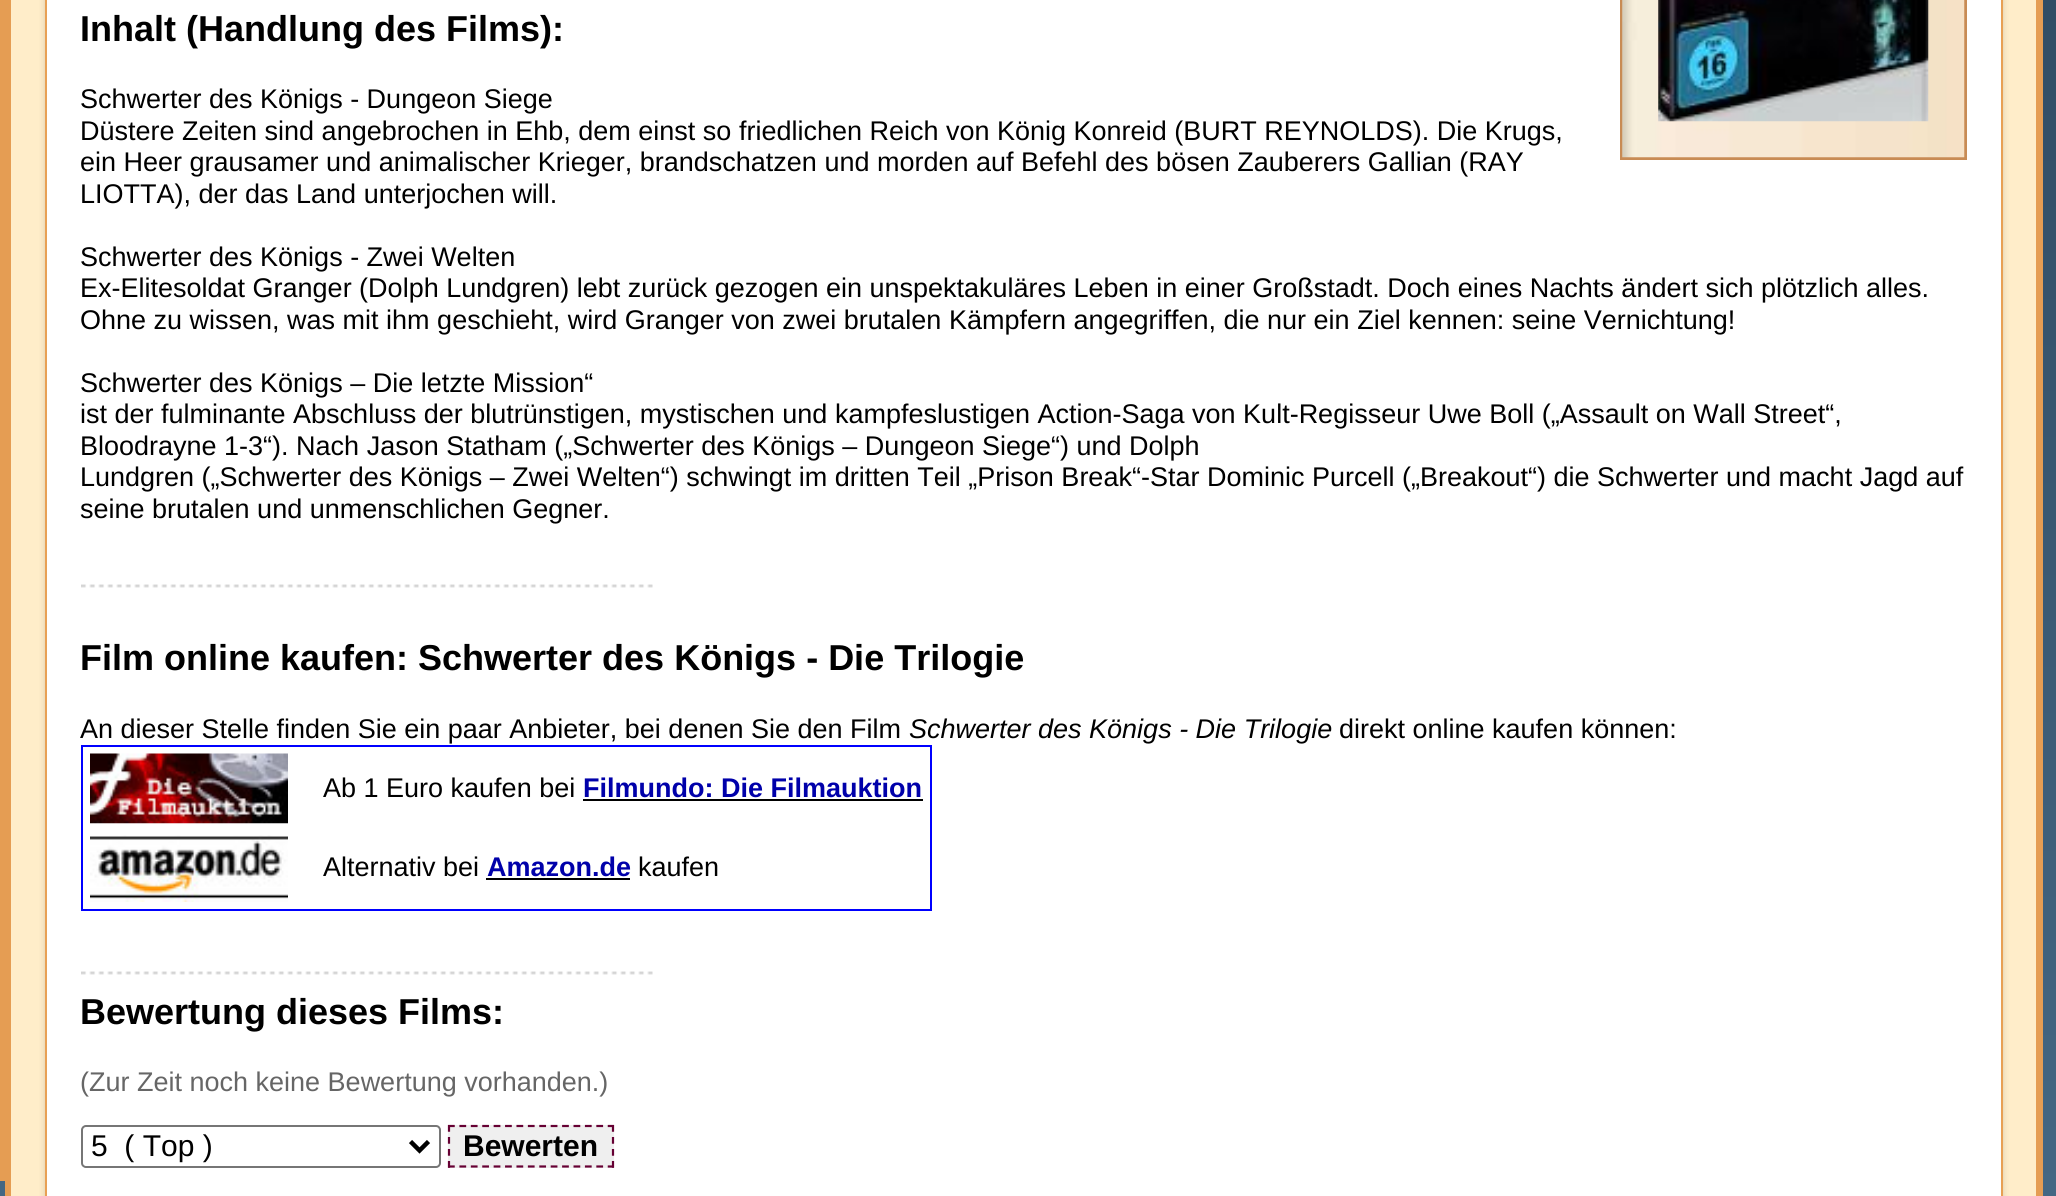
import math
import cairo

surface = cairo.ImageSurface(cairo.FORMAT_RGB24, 2056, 1196)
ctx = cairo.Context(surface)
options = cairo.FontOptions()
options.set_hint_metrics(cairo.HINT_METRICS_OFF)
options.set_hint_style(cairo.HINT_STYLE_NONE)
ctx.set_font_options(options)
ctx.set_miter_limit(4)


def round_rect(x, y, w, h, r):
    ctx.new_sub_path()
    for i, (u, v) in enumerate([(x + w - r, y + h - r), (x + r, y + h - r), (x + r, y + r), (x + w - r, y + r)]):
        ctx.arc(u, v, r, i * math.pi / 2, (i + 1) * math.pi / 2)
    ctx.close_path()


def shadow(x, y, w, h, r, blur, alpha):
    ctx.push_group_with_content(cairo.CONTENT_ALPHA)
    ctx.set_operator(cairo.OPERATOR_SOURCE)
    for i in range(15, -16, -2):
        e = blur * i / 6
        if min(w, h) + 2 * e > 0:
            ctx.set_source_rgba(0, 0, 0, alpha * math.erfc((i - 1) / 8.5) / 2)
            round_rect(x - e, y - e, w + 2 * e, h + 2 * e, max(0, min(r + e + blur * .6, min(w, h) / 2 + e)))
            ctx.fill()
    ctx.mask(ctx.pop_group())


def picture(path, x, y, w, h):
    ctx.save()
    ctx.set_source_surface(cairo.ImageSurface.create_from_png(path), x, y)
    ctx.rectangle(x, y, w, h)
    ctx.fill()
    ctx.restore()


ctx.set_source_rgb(1, 1, 1)
ctx.paint()
gradient = cairo.LinearGradient(1028, 0, 1028, 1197)
gradient.add_color_stop_rgba(0, 0.192, 0.302, 0.396, 1)
gradient.add_color_stop_rgba(1, 0.267, 0.404, 0.514, 1)
ctx.set_source(gradient)
ctx.rectangle(0, 0, 2056, 1196)
ctx.fill()
ctx.rectangle(8.5, -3.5, 2031, 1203)
ctx.set_source_rgb(0.898, 0.616, 0.325)
ctx.set_line_width(7)
ctx.stroke()
ctx.rectangle(0, 0, 5, 1181)
ctx.fill()
ctx.set_source_rgb(1, 0.929, 0.788)
ctx.rectangle(11, 0, 2025, 1196)
ctx.fill()
ctx.set_source_rgb(0, 0, 0)
shadow(45, -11, 1958, 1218, 0, 3.5, 0.15)
ctx.set_source_rgb(1, 1, 1)
ctx.rectangle(46, -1, 1956, 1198)
ctx.fill_preserve()
ctx.set_source_rgb(0.91, 0.627, 0.329)
ctx.set_line_width(2)
ctx.stroke()
ctx.select_font_face("Liberation Sans", cairo.FONT_SLANT_NORMAL, cairo.FONT_WEIGHT_BOLD)
ctx.set_font_size(36)
ctx.set_source_rgb(0, 0, 0)
ctx.move_to(80, 41)
ctx.show_text("Inhalt (Handlung des Films):")
ctx.set_source_rgb(0.784, 0.545, 0.329)
ctx.rectangle(1620, 0, 347, 160)
ctx.fill()
picture("img1.png", 1622, 0, 343, 158)
picture("img2.png", 1658, 0, 271, 122)
ctx.select_font_face("Liberation Sans")
ctx.set_font_size(27)
ctx.set_source_rgb(0, 0, 0)
ctx.move_to(80, 108)
ctx.show_text("Schwerter des Königs - Dungeon Siege")
ctx.move_to(80, 140)
ctx.show_text("Düstere Zeiten sind angebrochen in Ehb, dem einst so friedlichen Reich von König Konreid (BURT REYNOLDS). Die Krugs,")
ctx.move_to(80, 171)
ctx.show_text("ein Heer grausamer und animalischer Krieger, brandschatzen und morden auf Befehl des bösen Zauberers Gallian (RAY")
ctx.move_to(80, 203)
ctx.show_text("LIOTTA), der das Land unterjochen will.")
ctx.move_to(80, 266)
ctx.show_text("Schwerter des Königs - Zwei Welten")
ctx.move_to(80, 297)
ctx.show_text("Ex-Elitesoldat Granger (Dolph Lundgren) lebt zurück gezogen ein unspektakuläres Leben in einer Großstadt. Doch eines Nachts ändert sich plötzlich alles.")
ctx.move_to(80, 329)
ctx.show_text("Ohne zu wissen, was mit ihm geschieht, wird Granger von zwei brutalen Kämpfern angegriffen, die nur ein Ziel kennen: seine Vernichtung!")
ctx.move_to(80, 392)
ctx.show_text("Schwerter des Königs – Die letzte Mission“")
ctx.move_to(80, 423)
ctx.show_text("ist der fulminante Abschluss der blutrünstigen, mystischen und kampfeslustigen Action-Saga von Kult-Regisseur Uwe Boll („Assault on Wall Street“,")
ctx.move_to(80, 455)
ctx.show_text("Bloodrayne 1-3“). Nach Jason Statham („Schwerter des Königs – Dungeon Siege“) und Dolph")
ctx.move_to(80, 486)
ctx.show_text("Lundgren („Schwerter des Königs – Zwei Welten“) schwingt im dritten Teil „Prison Break“-Star Dominic Purcell („Breakout“) die Schwerter und macht Jagd auf")
ctx.move_to(80, 518)
ctx.show_text("seine brutalen und unmenschlichen Gegner.")
picture("img3.png", 81, 584, 572, 4)
ctx.select_font_face("Liberation Sans", cairo.FONT_SLANT_NORMAL, cairo.FONT_WEIGHT_BOLD)
ctx.set_font_size(36)
ctx.move_to(80, 670)
ctx.show_text("Film online kaufen: Schwerter des Königs - Die Trilogie")
ctx.select_font_face("Liberation Sans")
ctx.set_font_size(27)
ctx.move_to(80, 738)
ctx.show_text("An dieser Stelle finden Sie ein paar Anbieter, bei denen Sie den Film")
ctx.select_font_face("Liberation Sans", cairo.FONT_SLANT_ITALIC)
ctx.move_to(909, 738)
ctx.show_text("Schwerter des Königs - Die Trilogie")
ctx.select_font_face("Liberation Sans")
ctx.move_to(1339, 738)
ctx.show_text("direkt online kaufen können:")
ctx.rectangle(82, 746, 849, 164)
ctx.set_source_rgb(0, 0, 1)
ctx.stroke()
picture("img4.png", 90, 753, 198, 71)
ctx.set_source_rgb(0, 0, 0)
ctx.move_to(323, 797)
ctx.show_text("Ab 1 Euro kaufen bei")
ctx.select_font_face("Liberation Sans", cairo.FONT_SLANT_NORMAL, cairo.FONT_WEIGHT_BOLD)
ctx.set_source_rgb(0, 0, 0.667)
ctx.move_to(583, 797)
ctx.show_text("Filmundo: Die Filmauktion")
ctx.set_source_rgb(0, 0, 0)
ctx.rectangle(583, 799, 340, 2)
ctx.fill()
picture("img5.png", 90, 835, 198, 67)
ctx.select_font_face("Liberation Sans")
ctx.move_to(323, 876)
ctx.show_text("Alternativ bei")
ctx.select_font_face("Liberation Sans", cairo.FONT_SLANT_NORMAL, cairo.FONT_WEIGHT_BOLD)
ctx.set_source_rgb(0, 0, 0.667)
ctx.move_to(487, 876)
ctx.show_text("Amazon.de")
ctx.set_source_rgb(0, 0, 0)
ctx.rectangle(486, 878, 144, 2)
ctx.fill()
ctx.select_font_face("Liberation Sans")
ctx.move_to(638, 876)
ctx.show_text("kaufen")
picture("img3.png", 81, 971, 572, 4)
ctx.select_font_face("Liberation Sans", cairo.FONT_SLANT_NORMAL, cairo.FONT_WEIGHT_BOLD)
ctx.set_font_size(36)
ctx.move_to(80, 1024)
ctx.show_text("Bewertung dieses Films:")
ctx.select_font_face("Liberation Sans")
ctx.set_font_size(27)
ctx.set_source_rgb(0.4, 0.4, 0.4)
ctx.move_to(80, 1091)
ctx.show_text("(Zur Zeit noch keine Bewertung vorhanden.)")
round_rect(82, 1126, 358, 41, 4)
ctx.set_source_rgb(0.463, 0.463, 0.463)
ctx.stroke()
ctx.new_path()
ctx.move_to(410.5, 1141.5)
ctx.line_to(419.5, 1150.5)
ctx.line_to(428.5, 1141.5)
ctx.set_source_rgb(0, 0, 0)
ctx.set_line_width(4.5)
ctx.stroke()
ctx.set_font_size(30)
ctx.move_to(91, 1156)
ctx.show_text("5  ( Top )")
ctx.set_source_rgb(0.937, 0.937, 0.937)
ctx.rectangle(448, 1125, 166, 43)
ctx.fill()
ctx.new_path()
ctx.move_to(448, 1126)
ctx.line_to(614, 1126)
ctx.set_source_rgb(0.4, 0, 0.2)
ctx.set_line_width(2.2)
ctx.set_dash([6.75, 4.66])
ctx.stroke()
ctx.new_path()
ctx.move_to(613, 1125)
ctx.line_to(613, 1168)
ctx.set_dash([6.75, 5.24])
ctx.stroke()
ctx.new_path()
ctx.move_to(448, 1166.5)
ctx.line_to(614, 1166.5)
ctx.set_dash([6.75, 4.66])
ctx.stroke()
ctx.new_path()
ctx.move_to(449, 1125)
ctx.line_to(449, 1168)
ctx.set_dash([6.75, 5.24])
ctx.stroke()
ctx.select_font_face("Liberation Sans", cairo.FONT_SLANT_NORMAL, cairo.FONT_WEIGHT_BOLD)
ctx.set_source_rgb(0, 0, 0)
ctx.move_to(463, 1156)
ctx.show_text("Bewerten")
surface.write_to_png("page.png")
